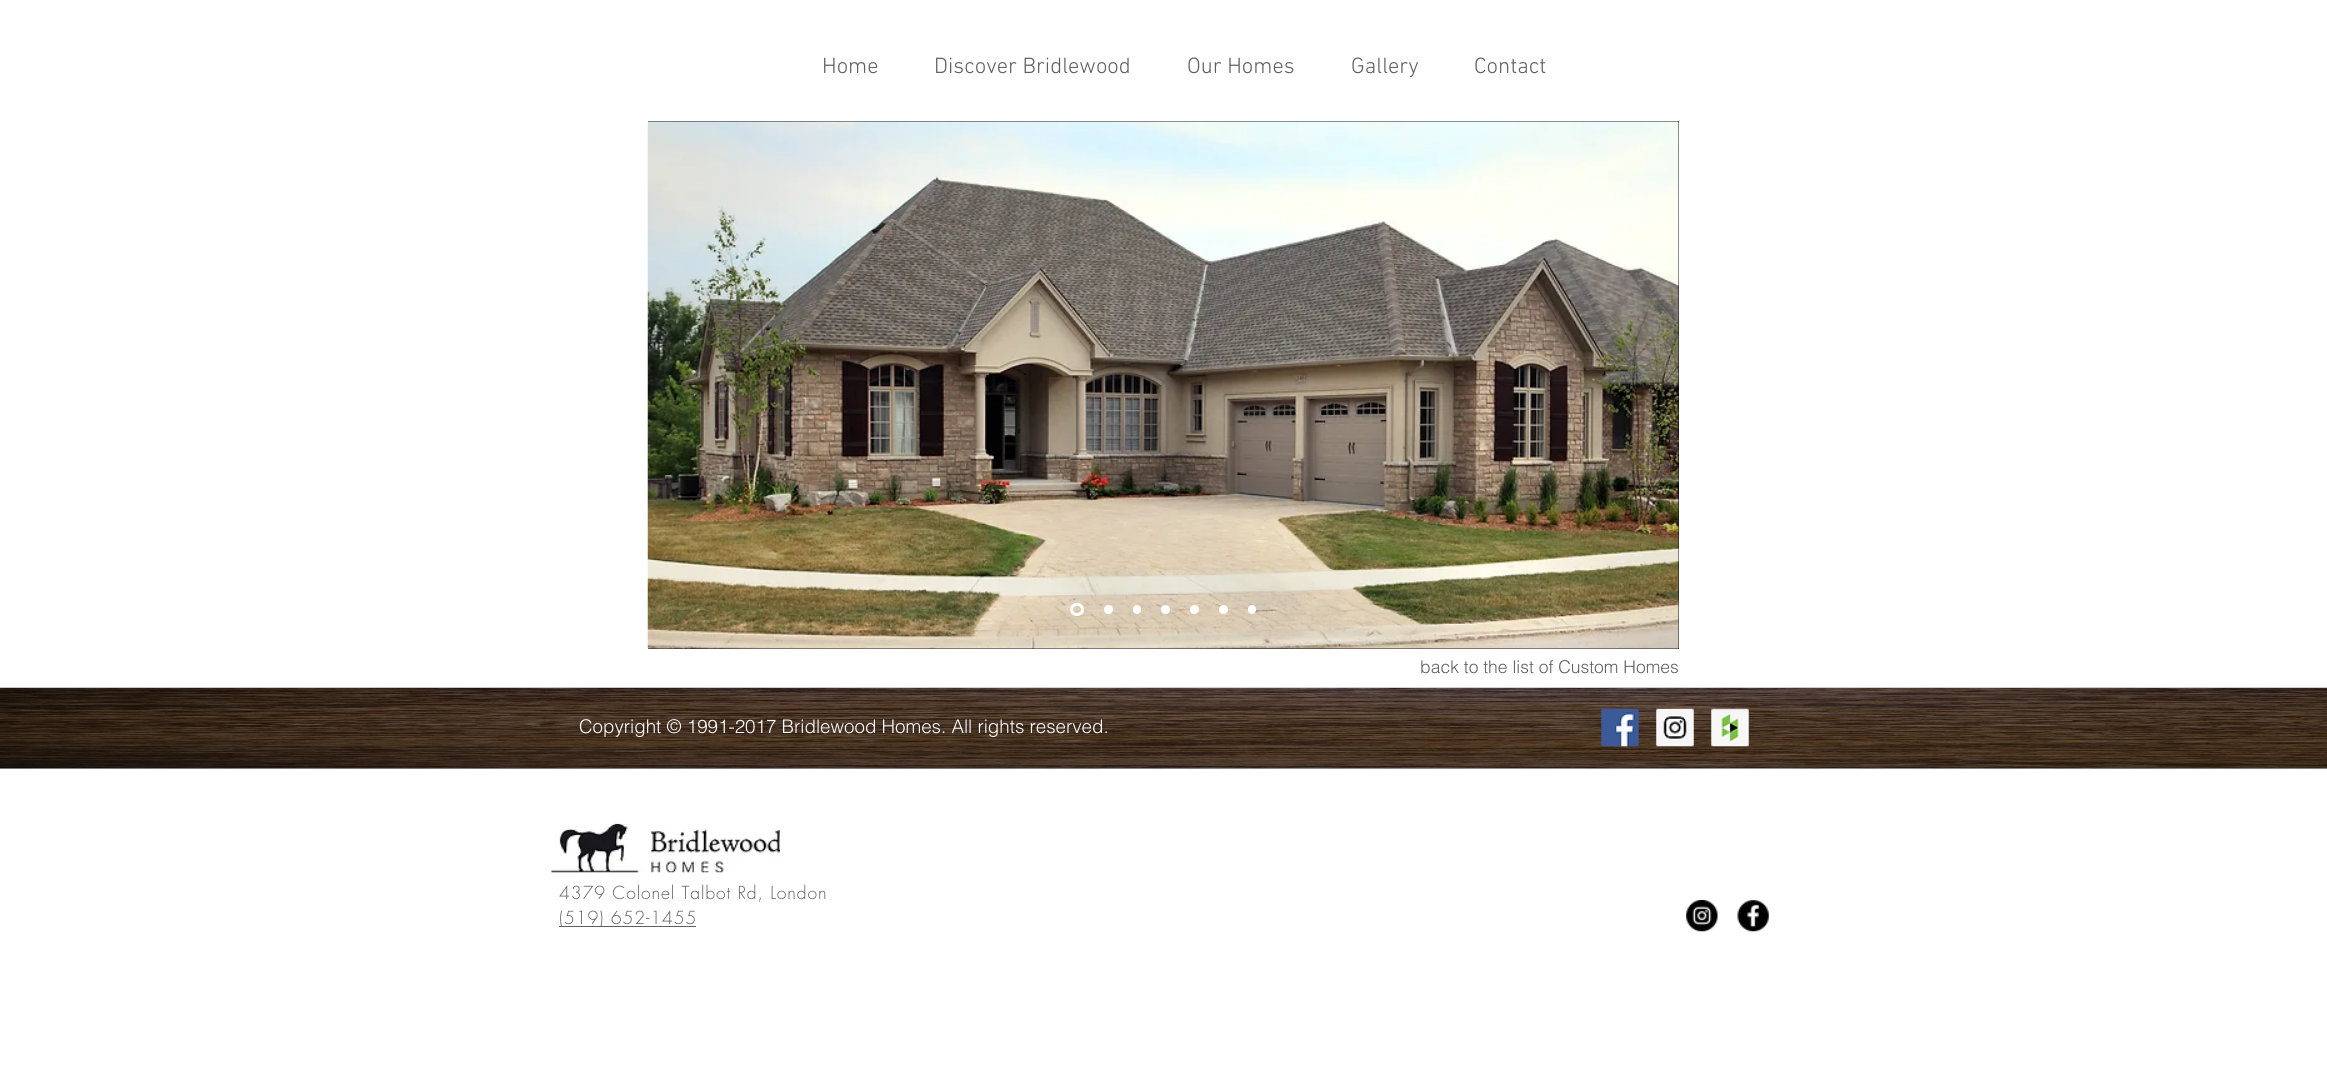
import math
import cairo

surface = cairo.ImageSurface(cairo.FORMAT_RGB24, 2327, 1065)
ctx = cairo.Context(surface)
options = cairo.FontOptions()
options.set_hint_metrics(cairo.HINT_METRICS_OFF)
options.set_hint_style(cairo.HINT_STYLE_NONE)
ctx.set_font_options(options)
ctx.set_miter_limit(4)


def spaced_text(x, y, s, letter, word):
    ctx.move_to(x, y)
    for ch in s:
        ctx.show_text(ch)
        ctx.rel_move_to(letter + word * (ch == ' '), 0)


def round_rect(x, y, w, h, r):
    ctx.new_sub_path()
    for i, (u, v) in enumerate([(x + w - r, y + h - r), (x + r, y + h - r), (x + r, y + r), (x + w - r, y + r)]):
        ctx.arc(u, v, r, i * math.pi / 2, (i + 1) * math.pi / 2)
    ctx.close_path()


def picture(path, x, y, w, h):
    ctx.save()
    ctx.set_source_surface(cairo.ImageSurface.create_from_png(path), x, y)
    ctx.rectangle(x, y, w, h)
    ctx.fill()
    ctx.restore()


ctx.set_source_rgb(1, 1, 1)
ctx.paint()
ctx.select_font_face("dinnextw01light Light")
ctx.set_font_size(22.5)
ctx.set_source_rgb(0.376, 0.369, 0.369)
ctx.move_to(822, 73)
ctx.show_text("Home")
ctx.move_to(934, 73)
ctx.show_text("Discover Bridlewood")
ctx.move_to(1187, 73)
ctx.show_text("Our Homes")
ctx.move_to(1351, 73)
ctx.show_text("Gallery")
ctx.move_to(1474, 73)
ctx.show_text("Contact")
ctx.set_source_rgb(0, 0, 0)
ctx.rectangle(648, 121, 1031, 528)
ctx.fill()
picture("img1.png", 647, 121, 1032, 528)
round_rect(1071.5, 604.5, 11, 10, 5)
ctx.set_source_rgb(1, 1, 1)
ctx.set_line_width(3)
ctx.stroke()
ctx.arc(1108.5, 609.5, 4.5, 0, 2 * math.pi)
ctx.fill()
round_rect(1133, 605, 8, 9, 4)
ctx.fill()
ctx.arc(1165.5, 609.5, 4.5, 0, 2 * math.pi)
ctx.fill()
ctx.arc(1194.5, 609.5, 4.5, 0, 2 * math.pi)
ctx.fill()
ctx.arc(1223.5, 609.5, 4.5, 0, 2 * math.pi)
ctx.fill()
round_rect(1248, 605, 8, 9, 4)
ctx.fill()
ctx.select_font_face("helvetica Light")
ctx.set_font_size(17.5)
ctx.set_source_rgb(0.376, 0.369, 0.369)
ctx.move_to(1420, 673)
ctx.show_text("back to the list of Custom Homes")
picture("img2.png", 0, 687, 2327, 82)
ctx.set_font_size(18.75)
ctx.set_source_rgb(1, 1, 1)
ctx.move_to(579, 733)
ctx.show_text("Copyright © 1991-2017 Bridlewood Homes. All rights reserved.")
picture("img3.png", 1601, 708, 38, 39)
picture("img4.png", 1656, 708, 38, 39)
picture("img5.png", 1711, 708, 38, 39)
picture("img6.png", 551, 823, 229, 50)
ctx.select_font_face("futura Light")
ctx.set_font_size(17.5)
ctx.set_source_rgb(0.376, 0.369, 0.369)
spaced_text(559, 899, "4379 Colonel Talbot Rd, London", 0.9, 0)
ctx.rectangle(559, 926, 137, 1)
ctx.fill()
spaced_text(559, 924, "(519) 652-1455", 0.9, 0)
picture("img7.png", 1686, 900, 32, 32)
picture("img8.png", 1737, 900, 32, 32)
surface.write_to_png("page.png")
